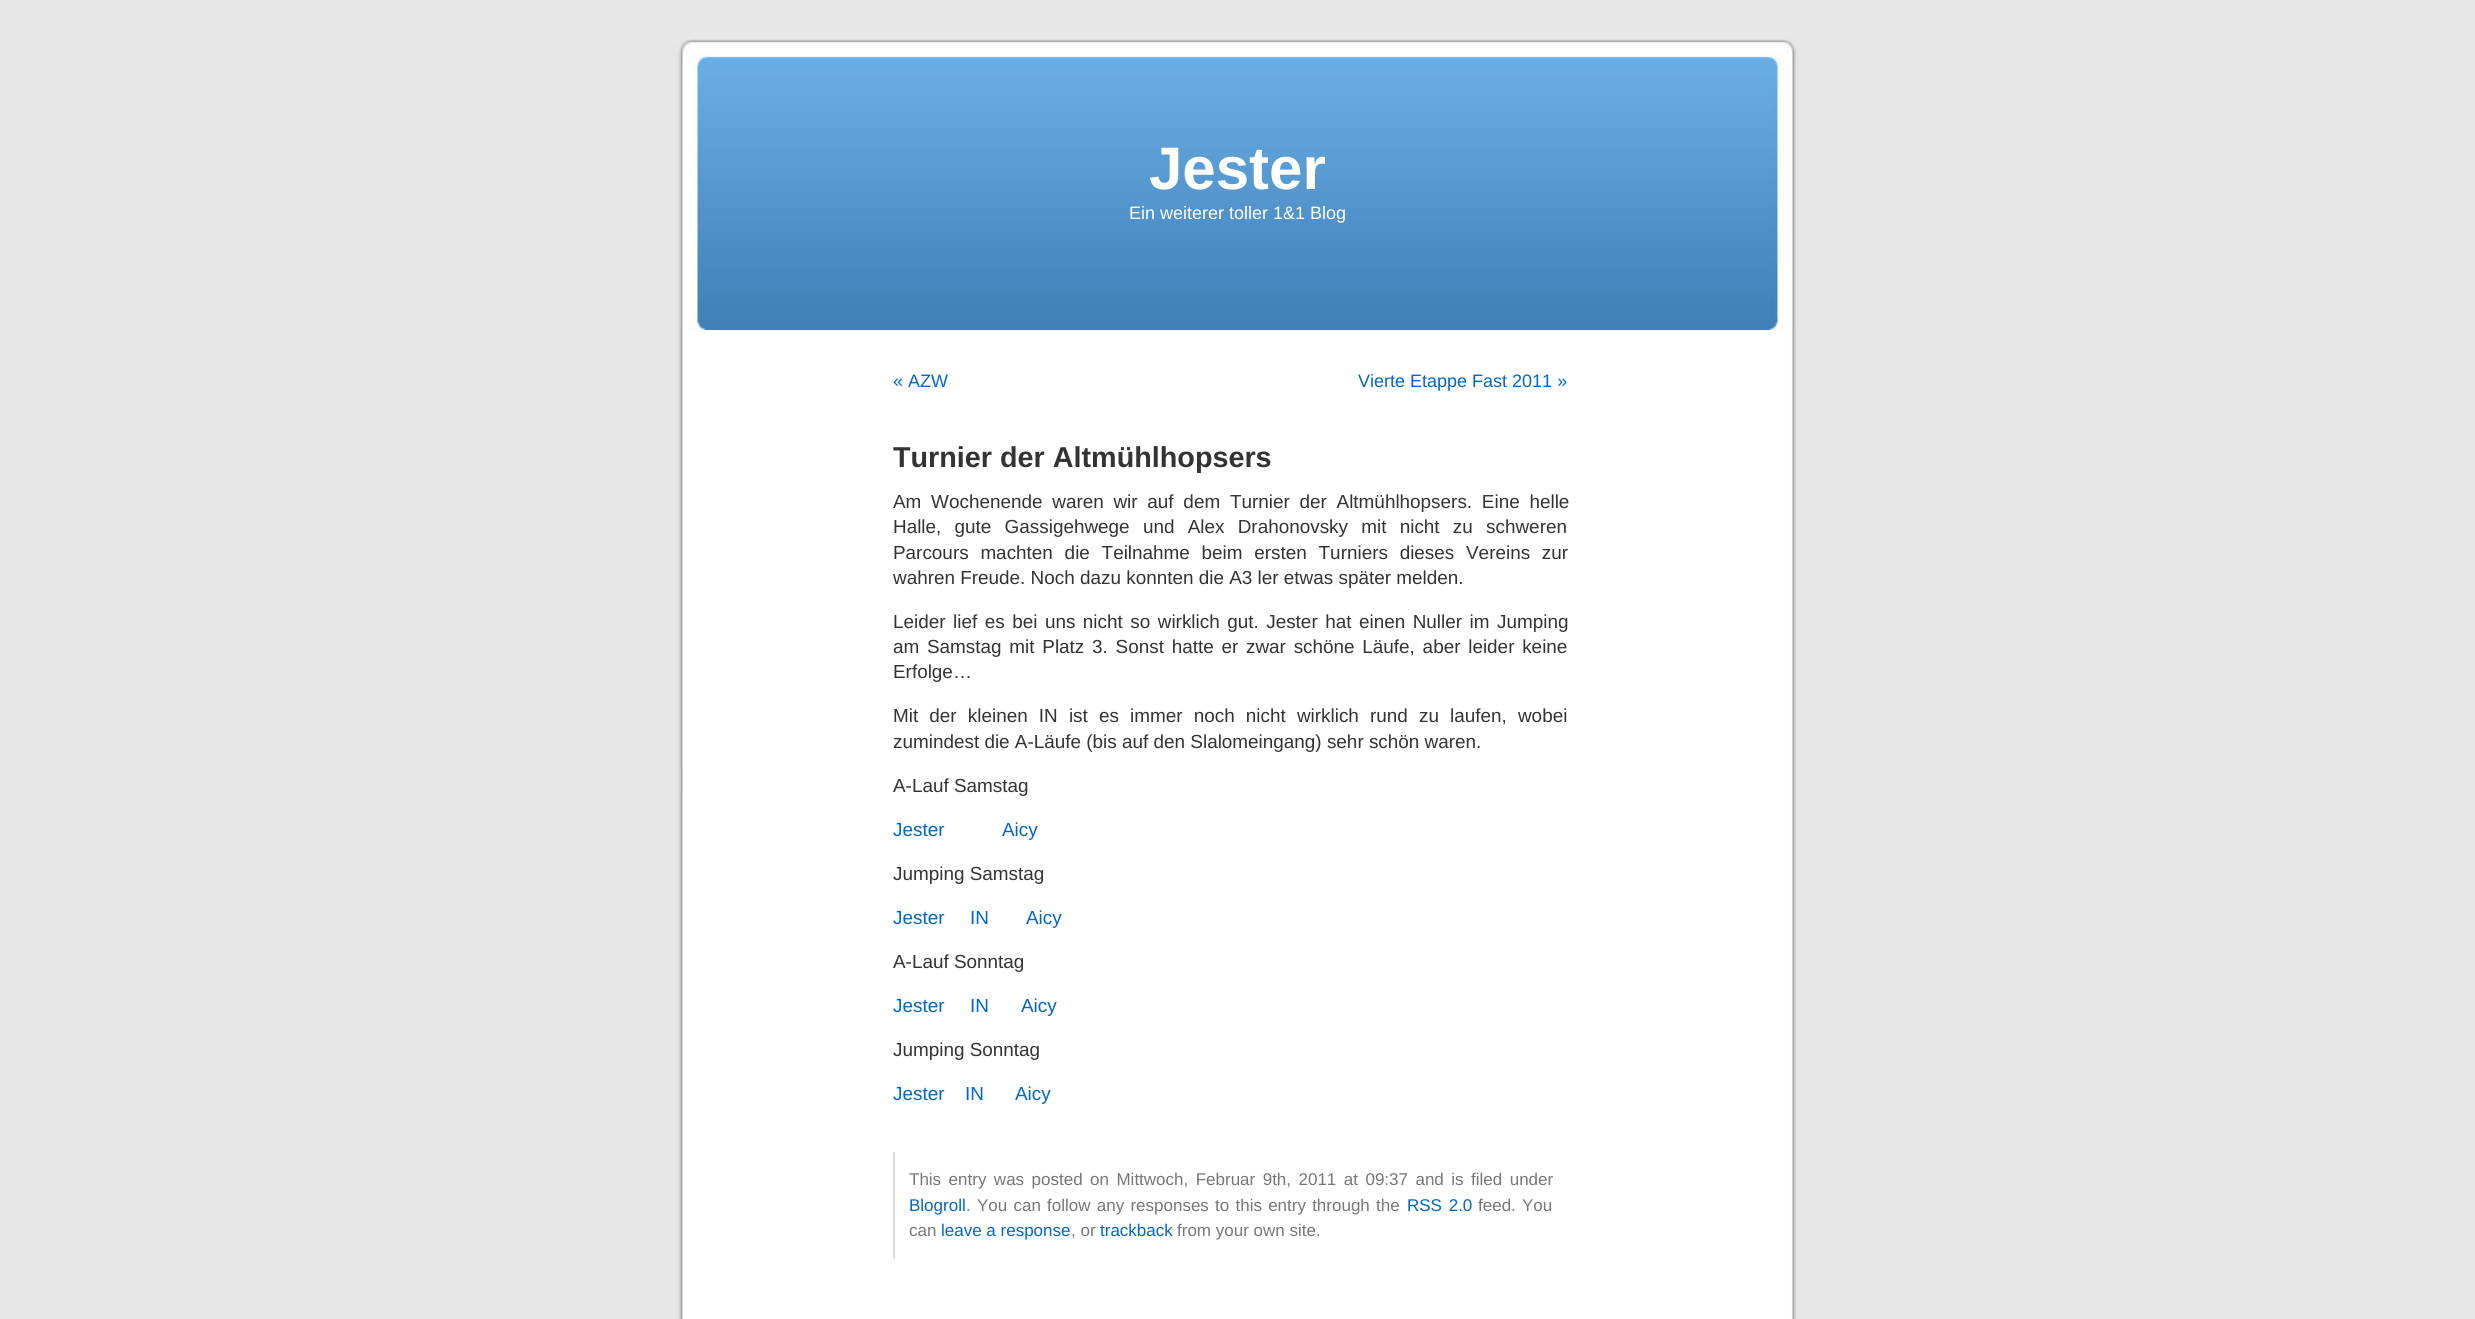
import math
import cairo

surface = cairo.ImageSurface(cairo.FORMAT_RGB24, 2475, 1319)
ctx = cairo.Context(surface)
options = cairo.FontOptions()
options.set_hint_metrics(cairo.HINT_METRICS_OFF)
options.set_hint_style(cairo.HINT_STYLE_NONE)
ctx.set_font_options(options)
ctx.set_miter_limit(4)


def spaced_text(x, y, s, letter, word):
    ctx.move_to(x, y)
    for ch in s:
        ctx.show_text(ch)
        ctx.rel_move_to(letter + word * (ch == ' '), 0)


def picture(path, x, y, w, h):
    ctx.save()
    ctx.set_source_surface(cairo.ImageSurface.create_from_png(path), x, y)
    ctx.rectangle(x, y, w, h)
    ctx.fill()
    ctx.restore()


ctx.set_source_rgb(0.906, 0.906, 0.906)
ctx.paint()
picture("img1.png", 678, 330, 1119, 989)
picture("img2.png", 669, 30, 1137, 300)
ctx.select_font_face("Liberation Sans", cairo.FONT_SLANT_NORMAL, cairo.FONT_WEIGHT_BOLD)
ctx.set_font_size(60)
ctx.set_source_rgb(1, 1, 1)
ctx.move_to(1149, 189)
ctx.show_text("Jester")
ctx.select_font_face("Liberation Sans")
ctx.set_font_size(18)
ctx.move_to(1129, 219)
ctx.show_text("Ein weiterer toller 1&1 Blog")
ctx.set_source_rgb(0, 0.4, 0.8)
ctx.move_to(893, 387)
ctx.show_text("« AZW")
ctx.move_to(1358, 387)
ctx.show_text("Vierte Etappe Fast 2011 »")
ctx.select_font_face("Liberation Sans", cairo.FONT_SLANT_NORMAL, cairo.FONT_WEIGHT_BOLD)
ctx.set_font_size(28.75)
ctx.set_source_rgb(0.2, 0.2, 0.2)
ctx.move_to(893, 467)
ctx.show_text("Turnier der Altmühlhopsers")
ctx.select_font_face("Liberation Sans")
ctx.set_font_size(18.9)
spaced_text(893, 508, "Am Wochenende waren wir auf dem Turnier der Altmühlhopsers. Eine helle", 0, 4.5)
spaced_text(893, 533, "Halle, gute Gassigehwege und Alex Drahonovsky mit nicht zu schweren", 0, 8)
spaced_text(893, 559, "Parcours machten die Teilnahme beim ersten Turniers dieses Vereins zur", 0, 6.5)
ctx.move_to(893, 584)
ctx.show_text("wahren Freude. Noch dazu konnten die A3 ler etwas später melden.")
spaced_text(893, 628, "Leider lief es bei uns nicht so wirklich gut. Jester hat einen Nuller im Jumping", 0, 2.25)
spaced_text(893, 653, "am Samstag mit Platz 3. Sonst hatte er zwar schöne Läufe, aber leider keine", 0, 2.5)
ctx.move_to(893, 678)
ctx.show_text("Erfolge…")
spaced_text(893, 722, "Mit der kleinen IN ist es immer noch nicht wirklich rund zu laufen, wobei", 0, 5.9)
ctx.move_to(893, 748)
ctx.show_text("zumindest die A-Läufe (bis auf den Slalomeingang) sehr schön waren.")
ctx.move_to(893, 792)
ctx.show_text("A-Lauf Samstag")
ctx.set_source_rgb(0, 0.4, 0.8)
ctx.move_to(893, 836)
ctx.show_text("Jester")
ctx.move_to(1002, 836)
ctx.show_text("Aicy")
ctx.set_source_rgb(0.2, 0.2, 0.2)
ctx.move_to(893, 880)
ctx.show_text("Jumping Samstag")
ctx.set_source_rgb(0, 0.4, 0.8)
ctx.move_to(893, 924)
ctx.show_text("Jester")
ctx.move_to(970, 924)
ctx.show_text("IN")
ctx.move_to(1026, 924)
ctx.show_text("Aicy")
ctx.set_source_rgb(0.2, 0.2, 0.2)
ctx.move_to(893, 968)
ctx.show_text("A-Lauf Sonntag")
ctx.set_source_rgb(0, 0.4, 0.8)
ctx.move_to(893, 1012)
ctx.show_text("Jester")
ctx.move_to(970, 1012)
ctx.show_text("IN")
ctx.move_to(1021, 1012)
ctx.show_text("Aicy")
ctx.set_source_rgb(0.2, 0.2, 0.2)
ctx.move_to(893, 1056)
ctx.show_text("Jumping Sonntag")
ctx.set_source_rgb(0, 0.4, 0.8)
ctx.move_to(893, 1100)
ctx.show_text("Jester")
ctx.move_to(965, 1100)
ctx.show_text("IN")
ctx.move_to(1015, 1100)
ctx.show_text("Aicy")
ctx.set_source_rgb(0.867, 0.867, 0.867)
ctx.rectangle(893, 1152, 2, 107)
ctx.fill()
ctx.set_font_size(17)
ctx.set_source_rgb(0.467, 0.467, 0.467)
spaced_text(909, 1185, "This entry was posted on Mittwoch, Februar 9th, 2011 at 09:37 and is filed under", 0, 2.75)
ctx.set_source_rgb(0, 0.4, 0.8)
ctx.move_to(909, 1211)
ctx.show_text("Blogroll")
ctx.set_source_rgb(0.467, 0.467, 0.467)
ctx.move_to(966, 1211)
ctx.show_text(".")
spaced_text(977, 1211, "You can follow any responses to this entry through the", 0, 1.5)
ctx.set_source_rgb(0, 0.4, 0.8)
spaced_text(1407, 1211, "RSS 2.0", 0, 2)
ctx.set_source_rgb(0.467, 0.467, 0.467)
ctx.move_to(1478, 1211)
ctx.show_text("feed.")
ctx.move_to(1522, 1211)
ctx.show_text("You")
ctx.move_to(909, 1236)
ctx.show_text("can")
ctx.set_source_rgb(0, 0.4, 0.8)
ctx.move_to(941, 1236)
ctx.show_text("leave a response")
ctx.set_source_rgb(0.467, 0.467, 0.467)
ctx.move_to(1071, 1236)
ctx.show_text(", or")
ctx.set_source_rgb(0, 0.4, 0.8)
ctx.move_to(1100, 1236)
ctx.show_text("trackback")
ctx.set_source_rgb(0.467, 0.467, 0.467)
ctx.move_to(1177, 1236)
ctx.show_text("from your own site.")
surface.write_to_png("page.png")
